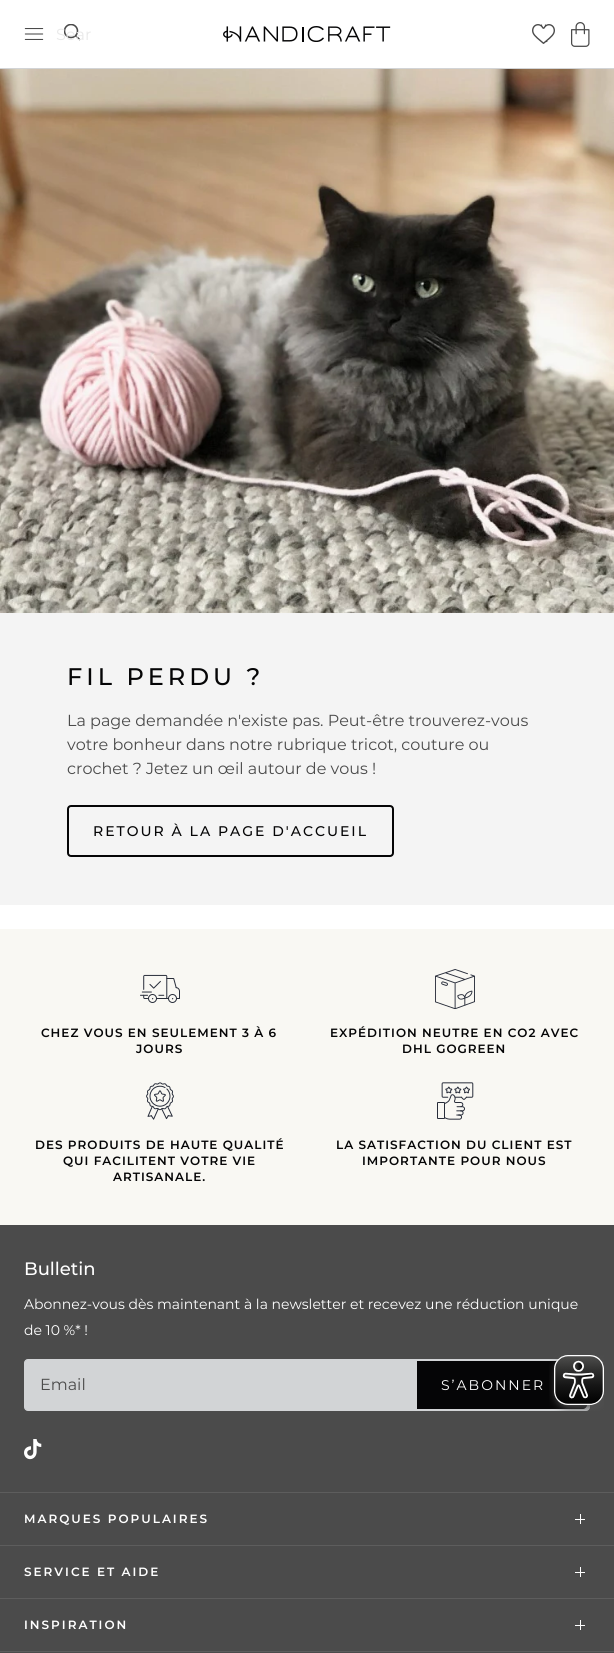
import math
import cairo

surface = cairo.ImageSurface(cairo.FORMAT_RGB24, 614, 1653)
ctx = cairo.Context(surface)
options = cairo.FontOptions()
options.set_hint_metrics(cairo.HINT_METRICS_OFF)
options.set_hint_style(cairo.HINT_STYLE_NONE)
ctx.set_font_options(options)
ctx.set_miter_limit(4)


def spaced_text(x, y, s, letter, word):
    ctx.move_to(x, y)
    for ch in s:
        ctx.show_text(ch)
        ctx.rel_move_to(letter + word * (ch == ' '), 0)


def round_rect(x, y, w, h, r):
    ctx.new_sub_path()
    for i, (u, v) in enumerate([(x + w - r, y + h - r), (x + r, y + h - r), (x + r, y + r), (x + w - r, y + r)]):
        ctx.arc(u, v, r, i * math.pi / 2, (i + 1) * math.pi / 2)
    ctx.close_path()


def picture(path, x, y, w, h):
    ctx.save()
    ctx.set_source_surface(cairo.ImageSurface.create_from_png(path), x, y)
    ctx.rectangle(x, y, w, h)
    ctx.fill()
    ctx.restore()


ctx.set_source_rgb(1, 1, 1)
ctx.paint()
ctx.set_source_rgb(0.824, 0.831, 0.839)
ctx.rectangle(0, 68, 614, 1)
ctx.fill()
picture("img1.png", 24, 28, 20, 12)
ctx.save()
ctx.rectangle(64, 24, 20, 20)
ctx.clip()
ctx.arc(71, 31, 6.5, 0, 2 * math.pi)
ctx.set_source_rgb(0.294, 0.294, 0.294)
ctx.set_line_width(1.6)
ctx.stroke()
ctx.restore()
ctx.new_path()
ctx.move_to(79.5, 39.5)
ctx.line_to(76, 36)
ctx.set_source_rgb(0.294, 0.294, 0.294)
ctx.set_line_width(1.6)
ctx.set_line_cap(cairo.LINE_CAP_ROUND)
ctx.stroke()
ctx.select_font_face("Montserrat")
ctx.set_font_size(16)
ctx.set_source_rgb(0.914, 0.914, 0.914)
ctx.move_to(56, 40)
ctx.show_text("Sear")
picture("img2.png", 223, 26, 168, 16)
picture("img3.png", 532, 24, 23, 20)
picture("img4.png", 571, 22, 19, 25)
picture("img5.png", 0, 69, 614, 544)
ctx.set_source_rgb(0.957, 0.957, 0.957)
ctx.rectangle(0, 613, 614, 292)
ctx.fill()
ctx.select_font_face("Montserrat Medium")
ctx.set_font_size(24)
ctx.set_source_rgb(0.02, 0.02, 0.024)
spaced_text(67, 685, "FIL PERDU ?", 4, 0)
ctx.select_font_face("Montserrat")
ctx.set_font_size(16)
ctx.set_source_rgb(0.294, 0.294, 0.294)
ctx.move_to(67, 726)
ctx.show_text("La page demandée n'existe pas. Peut-être trouverez-vous")
ctx.move_to(67, 750)
ctx.show_text("votre bonheur dans notre rubrique tricot, couture ou")
ctx.move_to(67, 774)
ctx.show_text("crochet ? Jetez un œil autour de vous !")
round_rect(68, 806, 325, 50, 3)
ctx.set_source_rgb(0.02, 0.02, 0.024)
ctx.set_line_width(2)
ctx.set_line_cap(cairo.LINE_CAP_BUTT)
ctx.stroke()
ctx.select_font_face("Montserrat Medium")
ctx.set_font_size(14)
spaced_text(93, 836, "RETOUR À LA PAGE D'ACCUEIL", 2, 0)
ctx.set_source_rgb(0.976, 0.969, 0.953)
ctx.rectangle(0, 929, 614, 296)
ctx.fill()
picture("img6.png", 140, 974, 40, 29)
ctx.select_font_face("Montserrat SemiBold")
ctx.set_font_size(12)
ctx.set_source_rgb(0.02, 0.02, 0.024)
spaced_text(41, 1037, "CHEZ VOUS EN SEULEMENT 3 À 6", 1, 0)
spaced_text(136, 1053, "JOURS", 1, 0)
picture("img7.png", 435, 969, 40, 40)
spaced_text(330, 1037, "EXPÉDITION NEUTRE EN CO2 AVEC", 1, 0)
spaced_text(402, 1053, "DHL GOGREEN", 1, 0)
picture("img8.png", 146, 1082, 28, 38)
spaced_text(35, 1149, "DES PRODUITS DE HAUTE QUALITÉ", 1, 0)
spaced_text(63, 1165, "QUI FACILITENT VOTRE VIE", 1, 0)
spaced_text(113, 1181, "ARTISANALE.", 1, 0)
picture("img9.png", 437, 1082, 37, 38)
spaced_text(336, 1149, "LA SATISFACTION DU CLIENT EST", 1, 0)
spaced_text(362, 1165, "IMPORTANTE POUR NOUS", 1, 0)
ctx.set_source_rgb(0.294, 0.294, 0.294)
ctx.rectangle(0, 1225, 614, 428)
ctx.fill()
ctx.select_font_face("Montserrat Medium")
ctx.set_font_size(18)
ctx.set_source_rgb(1, 1, 1)
ctx.move_to(24, 1275)
ctx.show_text("Bulletin")
ctx.select_font_face("Montserrat")
ctx.set_font_size(14)
ctx.move_to(24, 1309)
ctx.show_text("Abonnez-vous dès maintenant à la newsletter et recevez une réduction unique")
ctx.move_to(24, 1335)
ctx.show_text("de 10 %* !")
ctx.set_source_rgb(0.824, 0.831, 0.839)
round_rect(24.5, 1359.5, 565, 51, 3.5)
ctx.fill_preserve()
ctx.set_line_width(1)
ctx.stroke()
ctx.set_font_size(16)
ctx.set_source_rgb(0.294, 0.294, 0.294)
ctx.move_to(40, 1390)
ctx.show_text("Email")
ctx.set_source_rgb(0.02, 0.02, 0.024)
ctx.new_path()
ctx.move_to(417, 1361)
ctx.line_to(583, 1361)
ctx.curve_to(585, 1361, 587, 1363, 587, 1365)
ctx.line_to(587, 1405)
ctx.curve_to(587, 1407, 585, 1409, 583, 1409)
ctx.line_to(417, 1409)
ctx.close_path()
ctx.fill()
ctx.set_font_size(14)
ctx.set_source_rgb(1, 1, 1)
spaced_text(441, 1390, "S’ABONNER", 2, 0)
picture("img10.png", 24, 1439, 18, 21)
ctx.set_source_rgb(0.365, 0.365, 0.365)
ctx.rectangle(0, 1492, 614, 1)
ctx.fill()
ctx.rectangle(0, 1545, 614, 1)
ctx.fill()
ctx.select_font_face("Montserrat SemiBold")
ctx.set_font_size(12)
ctx.set_source_rgb(1, 1, 1)
spaced_text(24, 1523, "MARQUES POPULAIRES", 2, 0)
ctx.rectangle(575, 1519, 10, 1)
ctx.fill()
ctx.rectangle(580, 1514, 1, 10)
ctx.fill()
ctx.set_source_rgb(0.365, 0.365, 0.365)
ctx.rectangle(0, 1598, 614, 1)
ctx.fill()
ctx.set_source_rgb(1, 1, 1)
spaced_text(24, 1576, "SERVICE ET AIDE", 2, 0)
ctx.rectangle(575, 1572, 10, 1)
ctx.fill()
ctx.rectangle(580, 1567, 1, 10)
ctx.fill()
ctx.set_source_rgb(0.365, 0.365, 0.365)
ctx.rectangle(0, 1651, 614, 1)
ctx.fill()
ctx.set_source_rgb(1, 1, 1)
spaced_text(24, 1629, "INSPIRATION", 2, 0)
ctx.rectangle(575, 1625, 10, 1)
ctx.fill()
ctx.rectangle(580, 1620, 1, 10)
ctx.fill()
picture("img11.png", 549, 1355, 55, 56)
surface.write_to_png("page.png")
